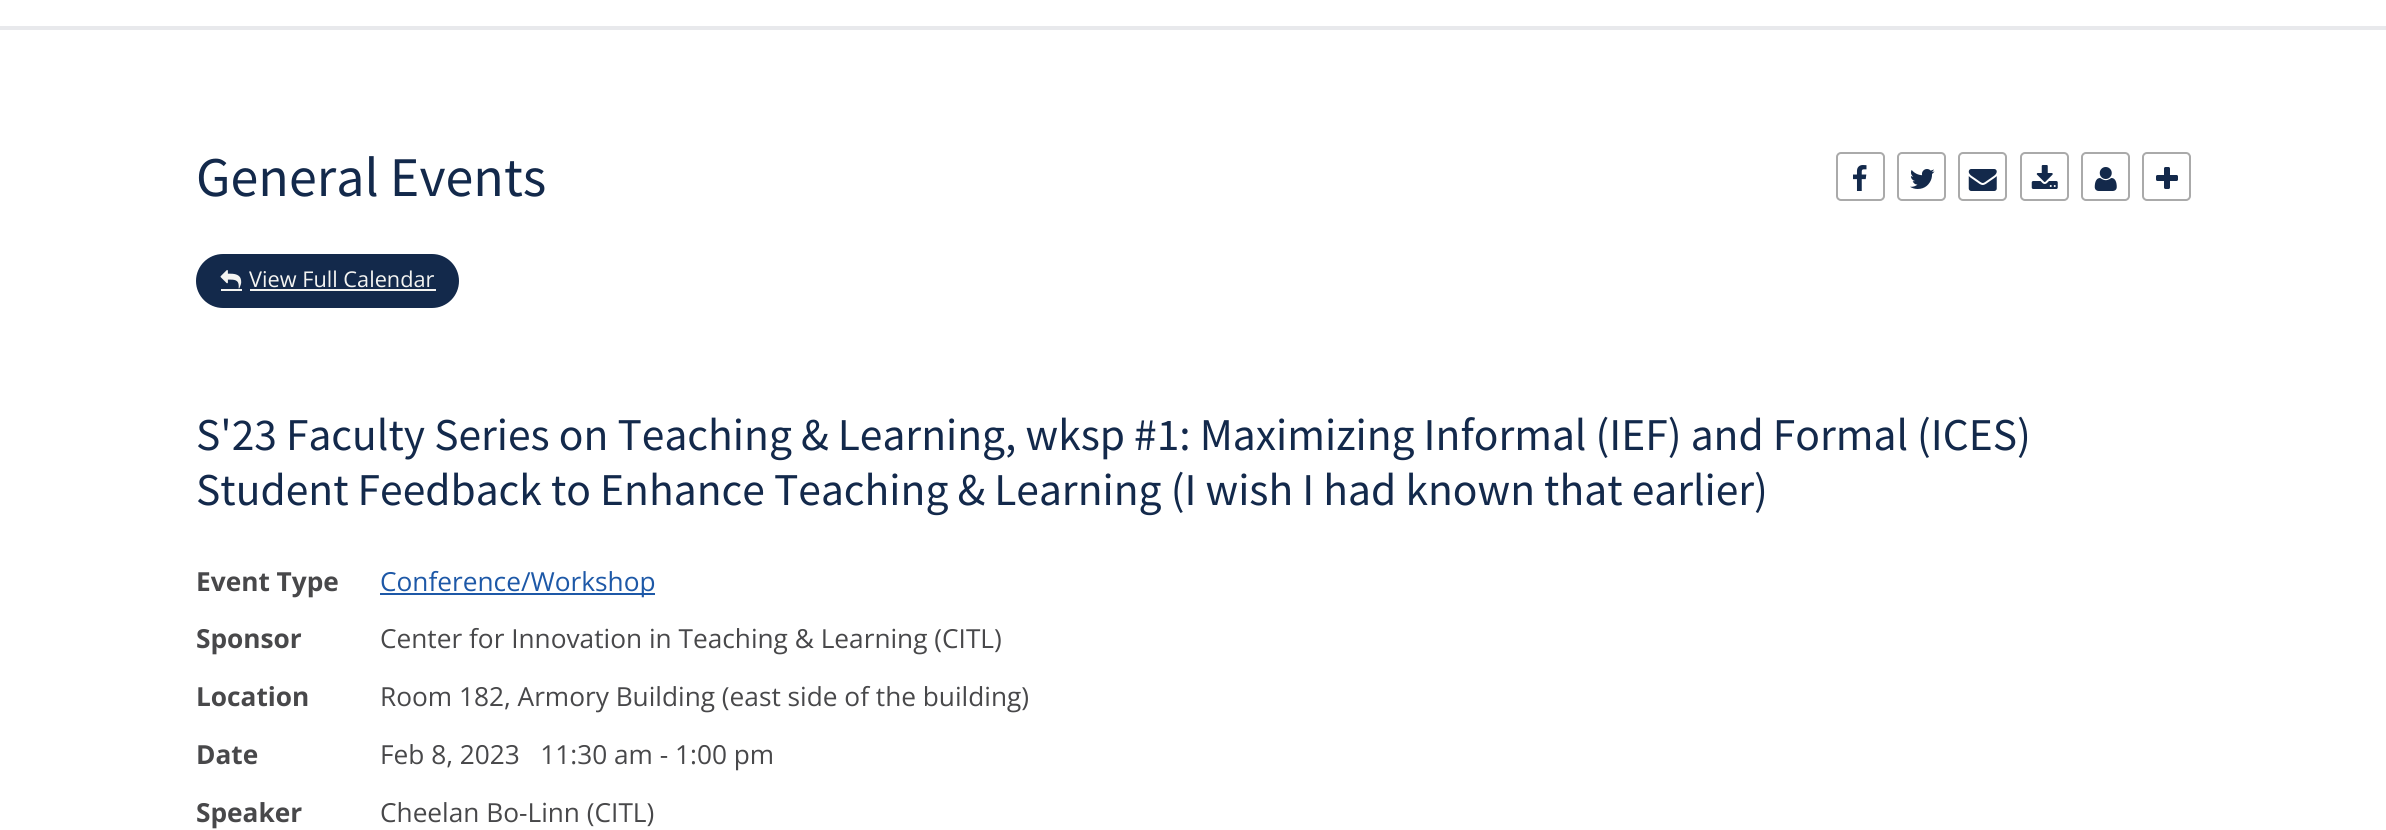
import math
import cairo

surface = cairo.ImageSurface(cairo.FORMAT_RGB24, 2386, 830)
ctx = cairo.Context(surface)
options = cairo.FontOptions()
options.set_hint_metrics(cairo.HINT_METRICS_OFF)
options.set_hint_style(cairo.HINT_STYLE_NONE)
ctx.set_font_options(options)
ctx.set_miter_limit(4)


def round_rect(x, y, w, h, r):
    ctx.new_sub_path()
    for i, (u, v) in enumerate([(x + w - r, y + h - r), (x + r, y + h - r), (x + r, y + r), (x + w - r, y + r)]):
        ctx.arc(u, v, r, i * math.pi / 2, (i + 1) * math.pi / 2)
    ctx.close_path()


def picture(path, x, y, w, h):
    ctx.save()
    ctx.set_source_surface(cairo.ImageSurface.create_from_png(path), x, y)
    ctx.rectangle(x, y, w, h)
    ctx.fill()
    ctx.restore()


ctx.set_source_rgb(1, 1, 1)
ctx.paint()
ctx.set_source_rgb(0.91, 0.914, 0.922)
ctx.rectangle(0, 26, 2386, 4)
ctx.fill()
ctx.select_font_face("Source Sans Pro")
ctx.set_font_size(56)
ctx.set_source_rgb(0.075, 0.161, 0.294)
ctx.move_to(196, 196)
ctx.show_text("General Events")
round_rect(1837, 153, 47, 47, 4)
ctx.set_source_rgb(0.667, 0.667, 0.667)
ctx.stroke()
picture("img1.png", 1853, 165, 14, 26)
round_rect(1898, 153, 47, 47, 4)
ctx.stroke()
picture("img2.png", 1910, 169, 25, 20)
round_rect(1959, 153, 47, 47, 4)
ctx.stroke()
picture("img3.png", 1968, 169, 29, 22)
round_rect(2021, 153, 47, 47, 4)
ctx.stroke()
picture("img4.png", 2031, 165, 27, 24)
round_rect(2082, 153, 47, 47, 4)
ctx.stroke()
picture("img5.png", 2094, 167, 23, 24)
round_rect(2143, 153, 47, 47, 4)
ctx.stroke()
picture("img6.png", 2156, 167, 22, 22)
ctx.set_source_rgb(0.075, 0.161, 0.294)
round_rect(196, 254, 263, 54, 27)
ctx.fill()
picture("img7.png", 220, 270, 22, 19)
ctx.select_font_face("Open Sans")
ctx.set_font_size(21.75)
ctx.set_source_rgb(0.957, 0.957, 0.949)
ctx.move_to(249, 287)
ctx.show_text("View Full Calendar")
ctx.rectangle(250, 289, 186, 2)
ctx.fill()
ctx.rectangle(221, 289, 21, 2)
ctx.fill()
ctx.select_font_face("Source Sans Pro")
ctx.set_font_size(45.5)
ctx.set_source_rgb(0.075, 0.161, 0.294)
ctx.move_to(196, 450)
ctx.show_text("S'23 Faculty Series on Teaching & Learning, wksp #1: Maximizing Informal (IEF) and Formal (ICES)")
ctx.move_to(196, 505)
ctx.show_text("Student Feedback to Enhance Teaching & Learning (I wish I had known that earlier)")
ctx.select_font_face("Open Sans", cairo.FONT_SLANT_NORMAL, cairo.FONT_WEIGHT_BOLD)
ctx.set_font_size(26.25)
ctx.set_source_rgb(0.282, 0.282, 0.29)
ctx.move_to(196, 591)
ctx.show_text("Event Type")
ctx.set_source_rgb(0.114, 0.345, 0.655)
ctx.rectangle(380, 593, 275, 2)
ctx.fill()
ctx.select_font_face("Open Sans")
ctx.move_to(380, 591)
ctx.show_text("Conference/Workshop")
ctx.select_font_face("Open Sans", cairo.FONT_SLANT_NORMAL, cairo.FONT_WEIGHT_BOLD)
ctx.set_source_rgb(0.282, 0.282, 0.29)
ctx.move_to(196, 648)
ctx.show_text("Sponsor")
ctx.select_font_face("Open Sans")
ctx.move_to(380, 648)
ctx.show_text("Center for Innovation in Teaching & Learning (CITL)")
ctx.select_font_face("Open Sans", cairo.FONT_SLANT_NORMAL, cairo.FONT_WEIGHT_BOLD)
ctx.move_to(196, 706)
ctx.show_text("Location")
ctx.select_font_face("Open Sans")
ctx.move_to(380, 706)
ctx.show_text("Room 182, Armory Building (east side of the building)")
ctx.select_font_face("Open Sans", cairo.FONT_SLANT_NORMAL, cairo.FONT_WEIGHT_BOLD)
ctx.move_to(196, 764)
ctx.show_text("Date")
ctx.select_font_face("Open Sans")
ctx.move_to(380, 764)
ctx.show_text("Feb 8, 2023   11:30 am - 1:00 pm")
ctx.select_font_face("Open Sans", cairo.FONT_SLANT_NORMAL, cairo.FONT_WEIGHT_BOLD)
ctx.move_to(196, 822)
ctx.show_text("Speaker")
ctx.select_font_face("Open Sans")
ctx.move_to(380, 822)
ctx.show_text("Cheelan Bo-Linn (CITL)")
surface.write_to_png("page.png")
